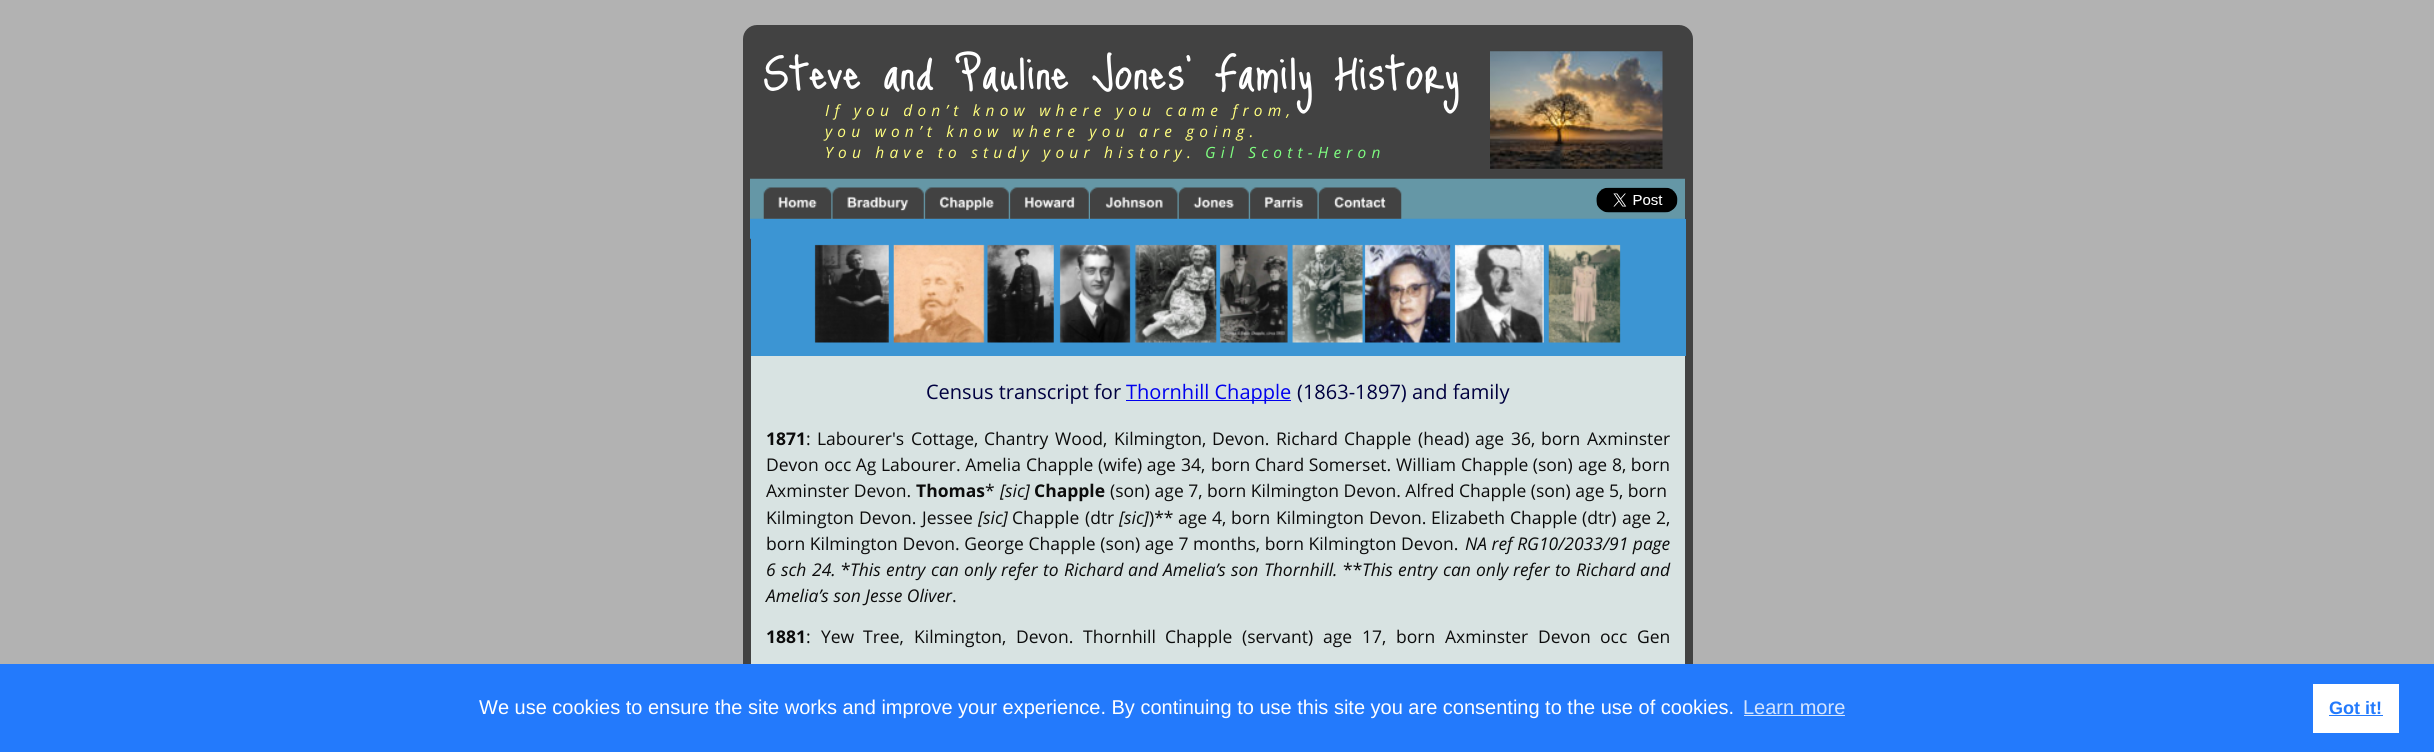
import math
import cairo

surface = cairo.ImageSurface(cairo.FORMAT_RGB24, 2434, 752)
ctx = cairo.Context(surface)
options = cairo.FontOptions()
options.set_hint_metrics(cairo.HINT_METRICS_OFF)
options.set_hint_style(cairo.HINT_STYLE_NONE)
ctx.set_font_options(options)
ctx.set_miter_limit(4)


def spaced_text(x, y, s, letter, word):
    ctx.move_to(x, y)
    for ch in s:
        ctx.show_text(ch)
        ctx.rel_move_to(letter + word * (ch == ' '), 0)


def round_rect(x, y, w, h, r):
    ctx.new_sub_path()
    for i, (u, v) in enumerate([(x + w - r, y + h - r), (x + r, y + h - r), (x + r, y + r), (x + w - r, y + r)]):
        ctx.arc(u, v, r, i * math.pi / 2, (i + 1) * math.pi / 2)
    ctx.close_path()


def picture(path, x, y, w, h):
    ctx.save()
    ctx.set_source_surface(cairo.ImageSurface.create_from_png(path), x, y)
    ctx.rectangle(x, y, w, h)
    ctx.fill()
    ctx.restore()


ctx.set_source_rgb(0.698, 0.698, 0.698)
ctx.paint()
ctx.set_source_rgb(0.259, 0.259, 0.259)
round_rect(743, 25, 950, 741, 14)
ctx.fill()
ctx.set_source_rgb(0.847, 0.89, 0.886)
ctx.rectangle(751, 356, 934, 308)
ctx.fill()
ctx.select_font_face("Just Me Again Down Here")
ctx.set_font_size(57.4)
ctx.set_source_rgb(1, 1, 1)
ctx.move_to(763, 89)
ctx.show_text("Steve and Pauline Jones’ Family History")
ctx.select_font_face("Open Sans", cairo.FONT_SLANT_ITALIC)
ctx.set_font_size(15.5)
ctx.set_source_rgb(1, 0.996, 0.498)
spaced_text(825, 116, "If you don’t know where you came from,", 5.2, 0)
spaced_text(825, 137, "you won’t know where you are going.", 5.2, 0)
spaced_text(825, 158, "You have to study your history.", 5.2, 0)
ctx.set_source_rgb(0.498, 1, 0.506)
spaced_text(1205, 158, "Gil Scott-Heron", 5.2, 0)
picture("img1.png", 1490, 51, 173, 118)
picture("img2.png", 750, 178, 935, 61)
picture("img3.png", 1596, 187, 82, 26)
ctx.set_source_rgb(0.235, 0.584, 0.827)
ctx.rectangle(751, 219, 935, 137)
ctx.fill()
picture("img4.png", 814, 244, 807, 99)
ctx.select_font_face("Open Sans")
ctx.set_font_size(20)
ctx.set_source_rgb(0, 0, 0.251)
ctx.move_to(926, 399)
ctx.show_text("Census transcript for")
ctx.set_source_rgb(0, 0, 0.933)
ctx.rectangle(1126, 400, 165, 1)
ctx.fill()
ctx.move_to(1126, 399)
ctx.show_text("Thornhill Chapple")
ctx.set_source_rgb(0, 0, 0.251)
ctx.move_to(1297, 399)
ctx.show_text("(1863-1897) and family")
ctx.select_font_face("Open Sans", cairo.FONT_SLANT_NORMAL, cairo.FONT_WEIGHT_BOLD)
ctx.set_font_size(17.5)
ctx.set_source_rgb(0.047, 0.047, 0.047)
ctx.move_to(766, 445)
ctx.show_text("1871")
ctx.select_font_face("Open Sans")
ctx.move_to(806, 445)
ctx.show_text(":")
ctx.move_to(817, 445)
ctx.show_text("Labourer's")
ctx.move_to(911, 445)
ctx.show_text("Cottage,")
ctx.move_to(984, 445)
ctx.show_text("Chantry")
ctx.move_to(1055, 445)
ctx.show_text("Wood,")
ctx.move_to(1114, 445)
ctx.show_text("Kilmington,")
ctx.move_to(1212, 445)
ctx.show_text("Devon.")
ctx.move_to(1276, 445)
ctx.show_text("Richard")
ctx.move_to(1344, 445)
ctx.show_text("Chapple")
ctx.move_to(1418, 445)
ctx.show_text("(head)")
ctx.move_to(1475, 445)
ctx.show_text("age")
ctx.move_to(1511, 445)
ctx.show_text("36,")
ctx.move_to(1541, 445)
ctx.show_text("born")
ctx.move_to(1587, 445)
ctx.show_text("Axminster")
ctx.move_to(766, 471)
ctx.show_text("Devon")
ctx.move_to(824, 471)
ctx.show_text("occ Ag")
ctx.move_to(881, 471)
ctx.show_text("Labourer. Amelia")
ctx.move_to(1026, 471)
ctx.show_text("Chapple")
ctx.move_to(1098, 471)
ctx.show_text("(wife) age")
ctx.move_to(1181, 471)
ctx.show_text("34,")
ctx.move_to(1211, 471)
ctx.show_text("born Chard Somerset.")
ctx.move_to(1396, 471)
ctx.show_text("William")
ctx.move_to(1461, 471)
ctx.show_text("Chapple (son)")
ctx.move_to(1578, 471)
ctx.show_text("age")
ctx.move_to(1612, 471)
ctx.show_text("8, born")
ctx.move_to(766, 497)
ctx.show_text("Axminster Devon.")
ctx.select_font_face("Open Sans", cairo.FONT_SLANT_NORMAL, cairo.FONT_WEIGHT_BOLD)
ctx.move_to(916, 497)
ctx.show_text("Thomas")
ctx.select_font_face("Open Sans")
ctx.move_to(985, 497)
ctx.show_text("*")
ctx.select_font_face("Open Sans", cairo.FONT_SLANT_ITALIC)
ctx.move_to(1000, 497)
ctx.show_text("[sic]")
ctx.select_font_face("Open Sans", cairo.FONT_SLANT_NORMAL, cairo.FONT_WEIGHT_BOLD)
ctx.move_to(1034, 497)
ctx.show_text("Chapple")
ctx.select_font_face("Open Sans")
ctx.move_to(1110, 497)
ctx.show_text("(son) age 7, born Kilmington Devon. Alfred Chapple (son) age 5, born")
ctx.move_to(766, 524)
ctx.show_text("Kilmington")
ctx.move_to(859, 524)
ctx.show_text("Devon.")
ctx.move_to(922, 524)
ctx.show_text("Jessee")
ctx.select_font_face("Open Sans", cairo.FONT_SLANT_ITALIC)
ctx.move_to(978, 524)
ctx.show_text("[sic]")
ctx.select_font_face("Open Sans")
ctx.move_to(1012, 524)
ctx.show_text("Chapple")
ctx.move_to(1085, 524)
ctx.show_text("(dtr")
ctx.select_font_face("Open Sans", cairo.FONT_SLANT_ITALIC)
ctx.move_to(1119, 524)
ctx.show_text("[sic]")
ctx.select_font_face("Open Sans")
ctx.move_to(1149, 524)
ctx.show_text(")**")
ctx.move_to(1178, 524)
ctx.show_text("age")
ctx.move_to(1212, 524)
ctx.show_text("4,")
ctx.move_to(1231, 524)
ctx.show_text("born")
ctx.move_to(1276, 524)
ctx.show_text("Kilmington")
ctx.move_to(1369, 524)
ctx.show_text("Devon.")
ctx.move_to(1431, 524)
ctx.show_text("Elizabeth")
ctx.move_to(1510, 524)
ctx.show_text("Chapple")
ctx.move_to(1582, 524)
ctx.show_text("(dtr)")
ctx.move_to(1622, 524)
ctx.show_text("age")
ctx.move_to(1656, 524)
ctx.show_text("2,")
ctx.move_to(766, 550)
ctx.show_text("born Kilmington Devon. George Chapple (son) age 7 months, born Kilmington Devon.")
ctx.select_font_face("Open Sans", cairo.FONT_SLANT_ITALIC)
ctx.move_to(1465, 550)
ctx.show_text("NA ref RG10/2033/91 page")
ctx.move_to(766, 576)
ctx.show_text("6")
ctx.move_to(781, 576)
ctx.show_text("sch")
ctx.move_to(812, 576)
ctx.show_text("24.")
ctx.select_font_face("Open Sans")
ctx.move_to(841, 576)
ctx.show_text("*")
ctx.select_font_face("Open Sans", cairo.FONT_SLANT_ITALIC)
ctx.move_to(850, 576)
ctx.show_text("This")
ctx.move_to(886, 576)
ctx.show_text("entry")
ctx.move_to(931, 576)
ctx.show_text("can")
ctx.move_to(964, 576)
ctx.show_text("only")
ctx.move_to(1001, 576)
ctx.show_text("refer")
ctx.move_to(1043, 576)
ctx.show_text("to")
ctx.move_to(1064, 576)
ctx.show_text("Richard")
ctx.move_to(1128, 576)
ctx.show_text("and")
ctx.move_to(1163, 576)
ctx.show_text("Amelia’s")
ctx.move_to(1231, 576)
ctx.show_text("son")
ctx.move_to(1264, 576)
ctx.show_text("Thornhill.")
ctx.select_font_face("Open Sans")
ctx.move_to(1343, 576)
ctx.show_text("**")
ctx.select_font_face("Open Sans", cairo.FONT_SLANT_ITALIC)
ctx.move_to(1362, 576)
ctx.show_text("This")
ctx.move_to(1398, 576)
ctx.show_text("entry")
ctx.move_to(1443, 576)
ctx.show_text("can")
ctx.move_to(1476, 576)
ctx.show_text("only")
ctx.move_to(1513, 576)
ctx.show_text("refer")
ctx.move_to(1555, 576)
ctx.show_text("to")
ctx.move_to(1576, 576)
ctx.show_text("Richard")
ctx.move_to(1640, 576)
ctx.show_text("and")
ctx.move_to(766, 602)
ctx.show_text("Amelia’s son Jesse Oliver")
ctx.select_font_face("Open Sans")
ctx.move_to(952, 602)
ctx.show_text(".")
ctx.select_font_face("Open Sans", cairo.FONT_SLANT_NORMAL, cairo.FONT_WEIGHT_BOLD)
ctx.move_to(766, 643)
ctx.show_text("1881")
ctx.select_font_face("Open Sans")
ctx.move_to(806, 643)
ctx.show_text(":")
ctx.move_to(821, 643)
ctx.show_text("Yew")
ctx.move_to(863, 643)
ctx.show_text("Tree,")
ctx.move_to(914, 643)
ctx.show_text("Kilmington,")
ctx.move_to(1016, 643)
ctx.show_text("Devon.")
ctx.move_to(1083, 643)
ctx.show_text("Thornhill")
ctx.move_to(1165, 643)
ctx.show_text("Chapple")
ctx.move_to(1242, 643)
ctx.show_text("(servant)")
ctx.move_to(1323, 643)
ctx.show_text("age")
ctx.move_to(1362, 643)
ctx.show_text("17,")
ctx.move_to(1396, 643)
ctx.show_text("born")
ctx.move_to(1445, 643)
ctx.show_text("Axminster")
ctx.move_to(1538, 643)
ctx.show_text("Devon")
ctx.move_to(1600, 643)
ctx.show_text("occ")
ctx.move_to(1637, 643)
ctx.show_text("Gen")
picture("img5.png", 763, 187, 69, 32)
picture("img6.png", 832, 187, 92, 32)
picture("img7.png", 924, 187, 85, 32)
picture("img8.png", 1009, 187, 80, 32)
picture("img9.png", 1090, 187, 88, 32)
picture("img10.png", 1178, 187, 71, 32)
picture("img11.png", 1249, 187, 69, 32)
picture("img12.png", 1318, 187, 84, 32)
ctx.set_source_rgb(0.137, 0.478, 0.988)
ctx.rectangle(0, 664, 2434, 88)
ctx.fill()
ctx.select_font_face("Liberation Sans")
ctx.set_font_size(20)
ctx.set_source_rgb(1, 1, 1)
ctx.move_to(479, 714)
ctx.show_text("We use cookies to ensure the site works and improve your experience. By continuing to use this site you are consenting to the use of cookies.")
ctx.set_source_rgb(0.827, 0.894, 0.996)
ctx.move_to(1743, 714)
ctx.show_text("Learn more")
ctx.rectangle(1744, 715, 101, 1)
ctx.fill()
ctx.set_source_rgb(1, 1, 1)
ctx.rectangle(2313, 684, 86, 49)
ctx.fill()
ctx.select_font_face("Liberation Sans", cairo.FONT_SLANT_NORMAL, cairo.FONT_WEIGHT_BOLD)
ctx.set_font_size(18)
ctx.set_source_rgb(0.137, 0.478, 0.988)
ctx.move_to(2329, 714)
ctx.show_text("Got it!")
ctx.rectangle(2329, 715, 54, 1)
ctx.fill()
surface.write_to_png("page.png")
